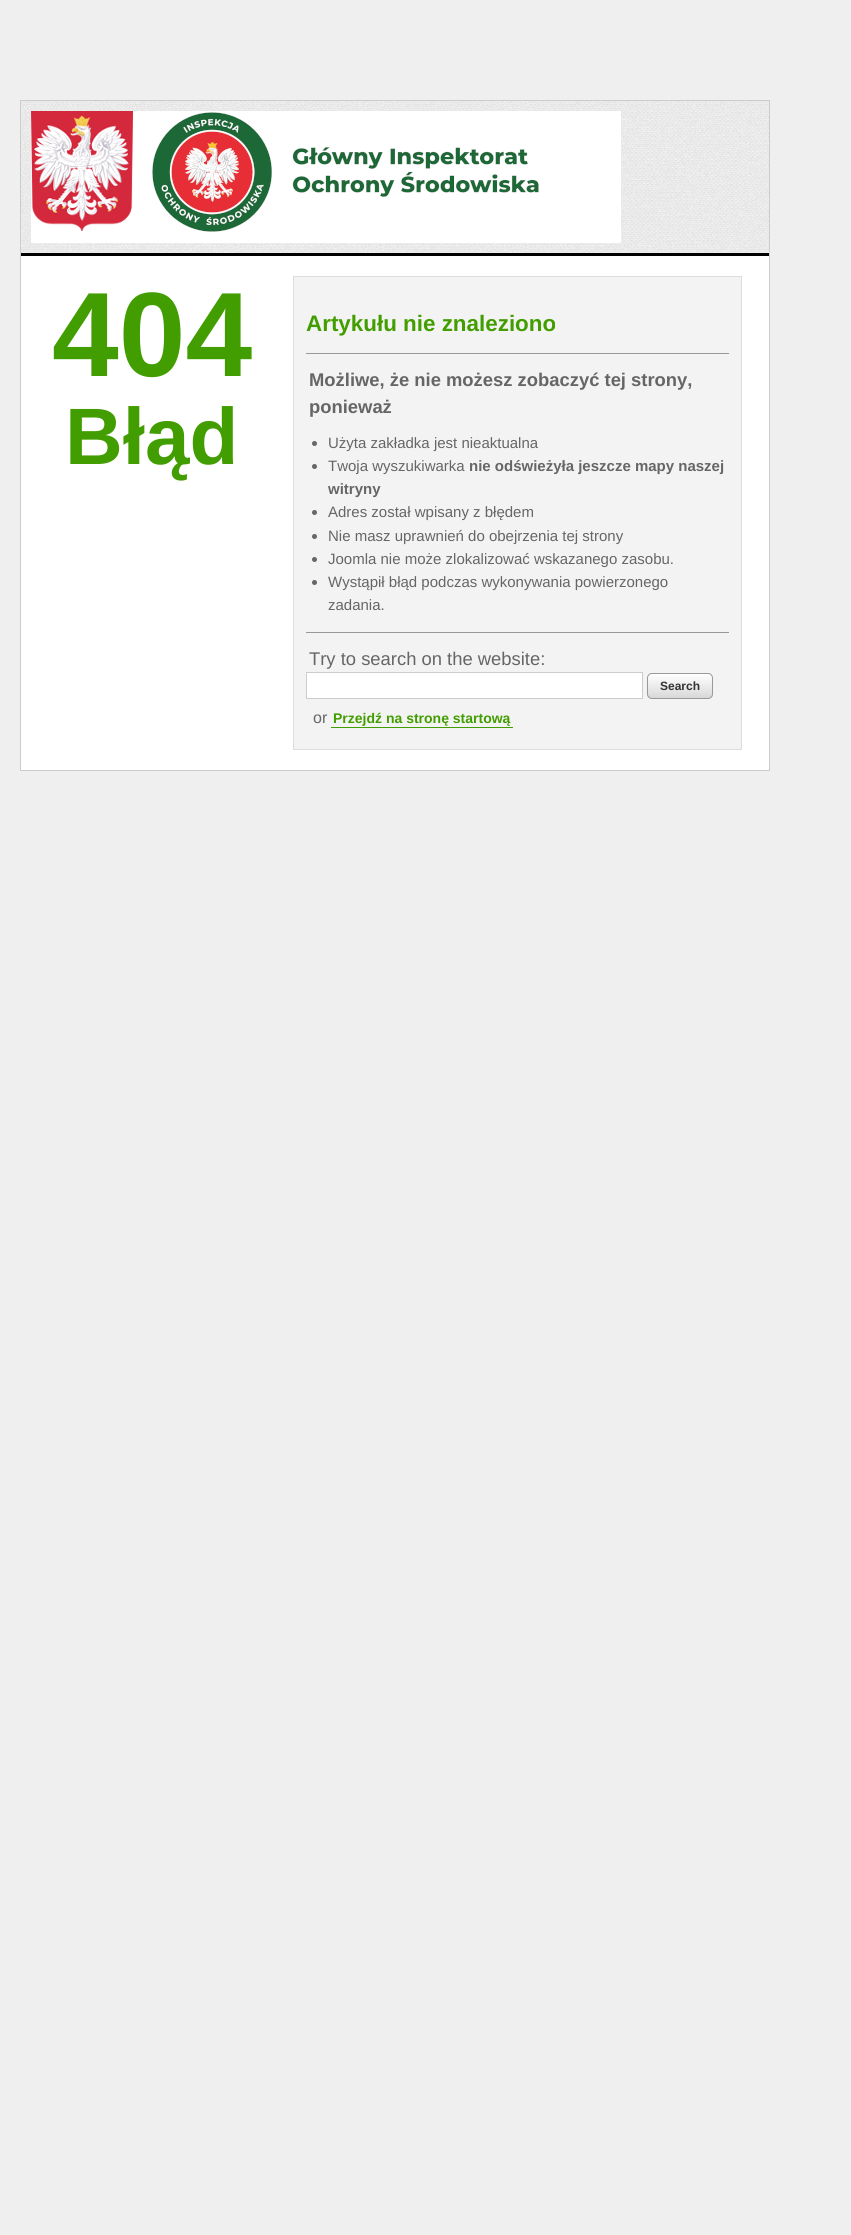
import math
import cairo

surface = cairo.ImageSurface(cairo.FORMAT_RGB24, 851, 2235)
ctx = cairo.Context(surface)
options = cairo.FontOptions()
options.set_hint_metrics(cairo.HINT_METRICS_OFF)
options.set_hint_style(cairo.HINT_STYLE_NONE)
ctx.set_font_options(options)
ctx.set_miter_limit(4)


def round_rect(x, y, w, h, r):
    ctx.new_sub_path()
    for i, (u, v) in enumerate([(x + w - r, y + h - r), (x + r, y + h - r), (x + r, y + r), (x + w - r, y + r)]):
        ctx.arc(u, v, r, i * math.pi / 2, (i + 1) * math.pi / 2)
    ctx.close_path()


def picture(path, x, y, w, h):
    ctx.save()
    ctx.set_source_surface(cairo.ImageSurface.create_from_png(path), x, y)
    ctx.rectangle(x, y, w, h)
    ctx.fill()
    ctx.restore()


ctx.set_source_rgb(0.937, 0.937, 0.937)
ctx.paint()
ctx.set_source_rgb(1, 1, 1)
ctx.rectangle(21, 256, 748, 514)
ctx.fill()
ctx.rectangle(20.5, 100.5, 749, 670)
ctx.set_source_rgb(0.8, 0.8, 0.8)
ctx.set_line_width(1)
ctx.stroke()
picture("img1.png", 21, 101, 748, 152)
ctx.set_source_rgb(0, 0, 0)
ctx.rectangle(21, 253, 748, 3)
ctx.fill()
picture("img2.png", 31, 111, 590, 132)
ctx.select_font_face("Liberation Sans", cairo.FONT_SLANT_NORMAL, cairo.FONT_WEIGHT_BOLD)
ctx.set_font_size(120)
ctx.set_source_rgb(0.259, 0.62, 0)
ctx.move_to(52, 376)
ctx.show_text("404")
ctx.set_font_size(80)
ctx.move_to(65, 464)
ctx.show_text("Błąd")
ctx.set_source_rgb(0.953, 0.953, 0.953)
ctx.rectangle(293.5, 276.5, 448, 473)
ctx.fill_preserve()
ctx.set_source_rgb(0.867, 0.867, 0.867)
ctx.stroke()
ctx.set_font_size(22.4)
ctx.set_source_rgb(0.259, 0.62, 0)
ctx.move_to(306, 331)
ctx.show_text("Artykułu nie znaleziono")
ctx.set_source_rgb(0.6, 0.6, 0.6)
ctx.rectangle(306, 353, 423, 1)
ctx.fill()
ctx.set_font_size(18.4)
ctx.set_source_rgb(0.4, 0.4, 0.4)
ctx.move_to(309, 386)
ctx.show_text("Możliwe, że nie możesz zobaczyć tej strony,")
ctx.move_to(309, 413)
ctx.show_text("ponieważ")
ctx.new_path()
ctx.arc(314.5, 443.5, 2.5, 0, 2 * math.pi)
ctx.fill()
ctx.select_font_face("Liberation Sans")
ctx.set_font_size(15)
ctx.move_to(328, 448)
ctx.show_text("Użyta zakładka jest nieaktualna")
ctx.new_path()
ctx.arc(314.5, 466.5, 2.5, 0, 2 * math.pi)
ctx.fill()
ctx.move_to(328, 471)
ctx.show_text("Twoja wyszukiwarka")
ctx.select_font_face("Liberation Sans", cairo.FONT_SLANT_NORMAL, cairo.FONT_WEIGHT_BOLD)
ctx.move_to(469, 471)
ctx.show_text("nie odświeżyła jeszcze mapy naszej")
ctx.move_to(328, 494)
ctx.show_text("witryny")
ctx.new_path()
ctx.arc(314.5, 512.5, 2.5, 0, 2 * math.pi)
ctx.fill()
ctx.select_font_face("Liberation Sans")
ctx.move_to(328, 517)
ctx.show_text("Adres został wpisany z błędem")
ctx.new_path()
ctx.arc(314.5, 536.5, 2.5, 0, 2 * math.pi)
ctx.fill()
ctx.move_to(328, 541)
ctx.show_text("Nie masz uprawnień do obejrzenia tej strony")
ctx.new_path()
ctx.arc(314.5, 559.5, 2.5, 0, 2 * math.pi)
ctx.fill()
ctx.move_to(328, 564)
ctx.show_text("Joomla nie może zlokalizować wskazanego zasobu.")
ctx.new_path()
ctx.arc(314.5, 582.5, 2.5, 0, 2 * math.pi)
ctx.fill()
ctx.move_to(328, 587)
ctx.show_text("Wystąpił błąd podczas wykonywania powierzonego")
ctx.move_to(328, 610)
ctx.show_text("zadania.")
ctx.set_source_rgb(0.6, 0.6, 0.6)
ctx.rectangle(306, 632, 423, 1)
ctx.fill()
ctx.set_font_size(18.4)
ctx.set_source_rgb(0.4, 0.4, 0.4)
ctx.move_to(309, 665)
ctx.show_text("Try to search on the website:")
ctx.set_source_rgb(1, 1, 1)
ctx.rectangle(306.5, 672.5, 336, 26)
ctx.fill_preserve()
ctx.set_source_rgb(0.8, 0.8, 0.8)
ctx.stroke()
ctx.save()
round_rect(647, 673, 66, 26, 5)
ctx.clip()
gradient = cairo.LinearGradient(680, 674, 680, 698)
gradient.add_color_stop_rgba(0, 1, 1, 1, 1)
gradient.add_color_stop_rgba(1, 0.847, 0.847, 0.847, 1)
ctx.set_source(gradient)
ctx.rectangle(647, 674, 66, 24)
ctx.fill()
ctx.restore()
round_rect(647.5, 673.5, 65, 25, 4.5)
ctx.set_source_rgb(0.6, 0.6, 0.6)
ctx.stroke()
ctx.select_font_face("Liberation Sans", cairo.FONT_SLANT_NORMAL, cairo.FONT_WEIGHT_BOLD)
ctx.set_font_size(12)
ctx.set_source_rgb(0.2, 0.2, 0.2)
ctx.move_to(660, 690)
ctx.show_text("Search")
ctx.select_font_face("Liberation Sans")
ctx.set_font_size(16)
ctx.set_source_rgb(0.4, 0.4, 0.4)
ctx.move_to(313, 723)
ctx.show_text("or")
ctx.select_font_face("Liberation Sans", cairo.FONT_SLANT_NORMAL, cairo.FONT_WEIGHT_BOLD)
ctx.set_font_size(14)
ctx.set_source_rgb(0.259, 0.62, 0)
ctx.move_to(333, 723)
ctx.show_text("Przejdź na stronę startową")
ctx.rectangle(331, 727, 182, 1)
ctx.fill()
surface.write_to_png("page.png")
